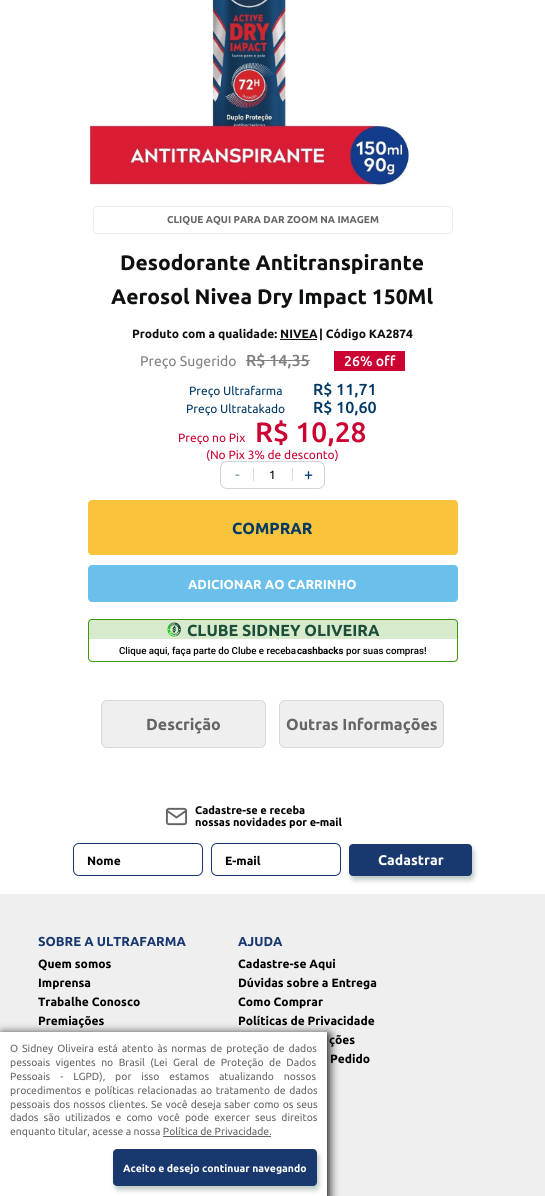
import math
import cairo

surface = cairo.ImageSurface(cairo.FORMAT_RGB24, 545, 1196)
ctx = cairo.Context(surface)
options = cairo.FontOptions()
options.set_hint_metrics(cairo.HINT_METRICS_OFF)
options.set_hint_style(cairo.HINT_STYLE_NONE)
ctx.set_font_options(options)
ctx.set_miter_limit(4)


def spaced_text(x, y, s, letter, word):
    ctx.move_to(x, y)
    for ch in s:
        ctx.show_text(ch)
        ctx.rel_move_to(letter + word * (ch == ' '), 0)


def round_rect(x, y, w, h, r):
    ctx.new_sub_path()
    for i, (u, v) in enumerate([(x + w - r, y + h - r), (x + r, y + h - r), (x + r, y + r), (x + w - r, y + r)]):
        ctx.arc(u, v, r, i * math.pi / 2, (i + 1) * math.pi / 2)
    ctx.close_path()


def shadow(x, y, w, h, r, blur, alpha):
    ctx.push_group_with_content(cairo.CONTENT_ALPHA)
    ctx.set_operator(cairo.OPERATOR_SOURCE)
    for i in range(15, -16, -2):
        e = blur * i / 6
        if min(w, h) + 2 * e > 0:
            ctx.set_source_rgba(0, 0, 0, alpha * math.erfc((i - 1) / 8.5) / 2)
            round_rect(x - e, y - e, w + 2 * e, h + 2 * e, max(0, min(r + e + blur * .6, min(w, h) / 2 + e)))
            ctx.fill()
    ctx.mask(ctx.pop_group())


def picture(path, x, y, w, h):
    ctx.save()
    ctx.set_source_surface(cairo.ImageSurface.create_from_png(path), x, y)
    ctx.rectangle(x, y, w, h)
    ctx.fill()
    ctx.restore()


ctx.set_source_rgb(1, 1, 1)
ctx.paint()
picture("img1.png", 88, 0, 322, 186)
round_rect(93.5, 206.5, 359, 27, 4.5)
ctx.set_source_rgb(0.922, 0.922, 0.922)
ctx.set_line_width(1)
ctx.stroke()
ctx.select_font_face("Ubuntu", cairo.FONT_SLANT_NORMAL, cairo.FONT_WEIGHT_BOLD)
ctx.set_font_size(10)
ctx.set_source_rgb(0.396, 0.396, 0.396)
ctx.move_to(167, 223)
ctx.show_text("CLIQUE AQUI PARA DAR ZOOM NA IMAGEM")
ctx.set_font_size(21)
ctx.set_source_rgb(0.059, 0.067, 0.067)
ctx.move_to(120, 270)
ctx.show_text("Desodorante Antitranspirante")
ctx.move_to(111, 304)
ctx.show_text("Aerosol Nivea Dry Impact 150Ml")
ctx.set_font_size(12)
ctx.move_to(132, 338)
ctx.show_text("Produto com a qualidade: NIVEA")
ctx.rectangle(280, 339, 37, 1)
ctx.fill()
ctx.move_to(319, 338)
ctx.show_text("| Código KA2874")
ctx.select_font_face("Ubuntu")
ctx.set_font_size(14)
ctx.set_source_rgb(0.502, 0.502, 0.502)
ctx.move_to(140, 366)
ctx.show_text("Preço Sugerido")
ctx.select_font_face("Ubuntu Medium")
ctx.set_font_size(16)
ctx.move_to(246, 366)
ctx.show_text("R$ 14,35")
ctx.rectangle(246, 360, 64, 1)
ctx.fill()
ctx.set_source_rgb(0.8, 0.008, 0.2)
ctx.rectangle(334, 351, 71, 20)
ctx.fill()
ctx.set_font_size(14)
ctx.set_source_rgb(1, 1, 1)
ctx.move_to(344, 366)
ctx.show_text("26% off")
ctx.select_font_face("Ubuntu")
ctx.set_font_size(12)
ctx.set_source_rgb(0, 0.22, 0.396)
ctx.move_to(189, 395)
ctx.show_text("Preço Ultrafarma")
ctx.select_font_face("Ubuntu Medium")
ctx.set_font_size(16)
ctx.move_to(313, 395)
ctx.show_text("R$ 11,71")
ctx.select_font_face("Ubuntu")
ctx.set_font_size(12)
ctx.move_to(186, 413)
ctx.show_text("Preço Ultratakado")
ctx.select_font_face("Ubuntu Medium")
ctx.set_font_size(16)
ctx.move_to(313, 413)
ctx.show_text("R$ 10,60")
ctx.select_font_face("Ubuntu")
ctx.set_font_size(12)
ctx.set_source_rgb(0.8, 0.008, 0.2)
ctx.move_to(178, 442)
ctx.show_text("Preço no Pix")
ctx.select_font_face("Ubuntu Medium")
ctx.set_font_size(28)
ctx.move_to(255, 442)
ctx.show_text("R$ 10,28")
ctx.select_font_face("Ubuntu")
ctx.set_font_size(12)
ctx.move_to(206, 459)
ctx.show_text("(No Pix 3% de desconto)")
round_rect(220.5, 461.5, 104, 27, 6.5)
ctx.set_source_rgb(0.831, 0.831, 0.831)
ctx.stroke()
ctx.set_font_size(16)
ctx.set_source_rgb(0.502, 0.612, 0.698)
ctx.move_to(235, 480)
ctx.show_text("-")
ctx.set_source_rgb(0.863, 0.863, 0.863)
ctx.rectangle(292, 468, 1, 13)
ctx.fill()
ctx.rectangle(253, 468, 1, 13)
ctx.fill()
ctx.set_font_size(12)
ctx.set_source_rgb(0, 0, 0)
ctx.move_to(269, 479)
ctx.show_text("1")
ctx.set_font_size(16)
ctx.set_source_rgb(0, 0.22, 0.396)
ctx.move_to(304, 480)
ctx.show_text("+")
ctx.set_source_rgb(0.965, 0.769, 0.235)
round_rect(88, 500, 370, 55, 4)
ctx.fill()
ctx.select_font_face("Ubuntu", cairo.FONT_SLANT_NORMAL, cairo.FONT_WEIGHT_BOLD)
ctx.set_source_rgb(0, 0.22, 0.396)
ctx.move_to(232, 534)
ctx.show_text("COMPRAR")
ctx.set_source_rgb(0.42, 0.753, 0.918)
round_rect(88, 565, 370, 37, 4)
ctx.fill()
ctx.set_font_size(13)
ctx.set_source_rgb(1, 1, 1)
ctx.move_to(188, 589)
ctx.show_text("ADICIONAR AO CARRINHO")
round_rect(88.5, 619.5, 369, 42, 3.5)
ctx.set_source_rgb(0.243, 0.6, 0.039)
ctx.stroke()
ctx.set_source_rgba(0.243, 0.6, 0.039, 0.21)
ctx.rectangle(89, 620, 368, 19)
ctx.fill()
picture("img2.png", 167, 622, 14, 15)
ctx.set_font_size(16)
ctx.set_source_rgb(0.11, 0.31, 0.224)
ctx.move_to(187, 636)
ctx.show_text("CLUBE SIDNEY OLIVEIRA")
ctx.select_font_face("Roboto Medium")
ctx.set_font_size(9.7)
ctx.set_source_rgb(0, 0, 0)
ctx.move_to(119, 654)
ctx.show_text("Clique aqui, faça parte do Clube e receba")
ctx.select_font_face("Roboto", cairo.FONT_SLANT_NORMAL, cairo.FONT_WEIGHT_BOLD)
ctx.move_to(297, 654)
ctx.show_text("cashbacks")
ctx.select_font_face("Roboto Medium")
ctx.move_to(346, 654)
ctx.show_text("por suas compras!")
ctx.set_source_rgb(0.937, 0.937, 0.937)
round_rect(101.5, 700.5, 164, 47, 5.5)
ctx.fill_preserve()
ctx.set_source_rgb(0.851, 0.851, 0.851)
ctx.stroke()
ctx.select_font_face("Ubuntu", cairo.FONT_SLANT_NORMAL, cairo.FONT_WEIGHT_BOLD)
ctx.set_font_size(16)
ctx.set_source_rgb(0.396, 0.396, 0.396)
ctx.move_to(146, 730)
ctx.show_text("Descrição")
ctx.set_source_rgb(0.937, 0.937, 0.937)
round_rect(279.5, 700.5, 164, 47, 5.5)
ctx.fill_preserve()
ctx.set_source_rgb(0.851, 0.851, 0.851)
ctx.stroke()
ctx.set_source_rgb(0.396, 0.396, 0.396)
ctx.move_to(286, 730)
ctx.show_text("Outras Informações")
picture("img3.png", 165, 807, 23, 19)
ctx.set_font_size(11)
ctx.set_source_rgb(0, 0, 0)
ctx.move_to(195, 814)
ctx.show_text("Cadastre-se e receba")
ctx.move_to(195, 826)
ctx.show_text("nossas novidades por e-mail")
round_rect(73.5, 843.5, 129, 32, 5.5)
ctx.set_source_rgb(0.098, 0.22, 0.431)
ctx.stroke()
ctx.set_font_size(12)
ctx.set_source_rgb(0, 0, 0)
ctx.move_to(87, 865)
ctx.show_text("Nome")
round_rect(211.5, 843.5, 129, 32, 5.5)
ctx.set_source_rgb(0.098, 0.22, 0.431)
ctx.stroke()
ctx.set_source_rgb(0, 0, 0)
ctx.move_to(225, 865)
ctx.show_text("E-mail")
ctx.set_source_rgb(0.745, 0.788, 0.773)
shadow(351, 848, 123, 32, 4, 2.5, 1)
ctx.set_source_rgb(0.098, 0.22, 0.431)
round_rect(349, 844, 123, 32, 4)
ctx.fill()
ctx.set_font_size(14)
ctx.set_source_rgb(1, 1, 1)
ctx.move_to(378, 865)
ctx.show_text("Cadastrar")
ctx.set_source_rgb(0.937, 0.937, 0.937)
ctx.rectangle(0, 894, 545, 302)
ctx.fill()
ctx.set_font_size(13)
ctx.set_source_rgb(0.098, 0.22, 0.431)
ctx.move_to(38, 946)
ctx.show_text("SOBRE A ULTRAFARMA")
ctx.set_font_size(12)
ctx.set_source_rgb(0, 0, 0)
ctx.move_to(38, 968)
ctx.show_text("Quem somos")
ctx.move_to(38, 987)
ctx.show_text("Imprensa")
ctx.move_to(38, 1006)
ctx.show_text("Trabalhe Conosco")
ctx.move_to(38, 1025)
ctx.show_text("Premiações")
ctx.set_font_size(13)
ctx.set_source_rgb(0.098, 0.22, 0.431)
ctx.move_to(238, 946)
ctx.show_text("AJUDA")
ctx.set_font_size(12)
ctx.set_source_rgb(0, 0, 0)
ctx.move_to(238, 968)
ctx.show_text("Cadastre-se Aqui")
ctx.move_to(238, 987)
ctx.show_text("Dúvidas sobre a Entrega")
ctx.move_to(238, 1006)
ctx.show_text("Como Comprar")
ctx.move_to(238, 1025)
ctx.show_text("Políticas de Privacidade")
ctx.move_to(329, 1044)
ctx.show_text("ções")
ctx.move_to(330, 1063)
ctx.show_text("Pedido")
ctx.set_source_rgb(0, 0, 0)
shadow(2, 1034, 327, 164, 0, 5, 1)
ctx.set_source_rgb(1, 1, 1)
ctx.rectangle(0, 1032, 327, 164)
ctx.fill()
ctx.select_font_face("Ubuntu")
ctx.set_font_size(10.4)
ctx.set_source_rgb(0.396, 0.396, 0.396)
spaced_text(10, 1052, "O Sidney Oliveira está atento às normas de proteção de dados", 0, 1.5)
spaced_text(10, 1066, "pessoais vigentes no Brasil (Lei Geral de Proteção de Dados", 0, 3)
spaced_text(10, 1080, "Pessoais - LGPD), por isso estamos atualizando nossos", 0, 7.5)
spaced_text(10, 1094, "procedimentos e políticas relacionadas ao tratamento de dados", 0, 1.25)
spaced_text(10, 1108, "pessoais dos nossos clientes. Se você deseja saber como os seus", 0, 0.75)
spaced_text(10, 1121, "dados são utilizados e como você pode exercer seus direitos", 0, 2.75)
ctx.move_to(10, 1135)
ctx.show_text("enquanto titular, acesse a nossa Política de Privacidade.")
ctx.set_source_rgb(0.392, 0.392, 0.392)
ctx.rectangle(163, 1136, 108, 1)
ctx.fill()
ctx.set_source_rgb(0.745, 0.788, 0.773)
shadow(115, 1153, 204, 37, 4, 2.5, 1)
ctx.set_source_rgb(0.098, 0.22, 0.431)
round_rect(113, 1149, 204, 37, 4)
ctx.fill()
ctx.select_font_face("Ubuntu", cairo.FONT_SLANT_NORMAL, cairo.FONT_WEIGHT_BOLD)
ctx.set_source_rgb(1, 1, 1)
ctx.move_to(123, 1172)
ctx.show_text("Aceito e desejo continuar navegando")
surface.write_to_png("page.png")
